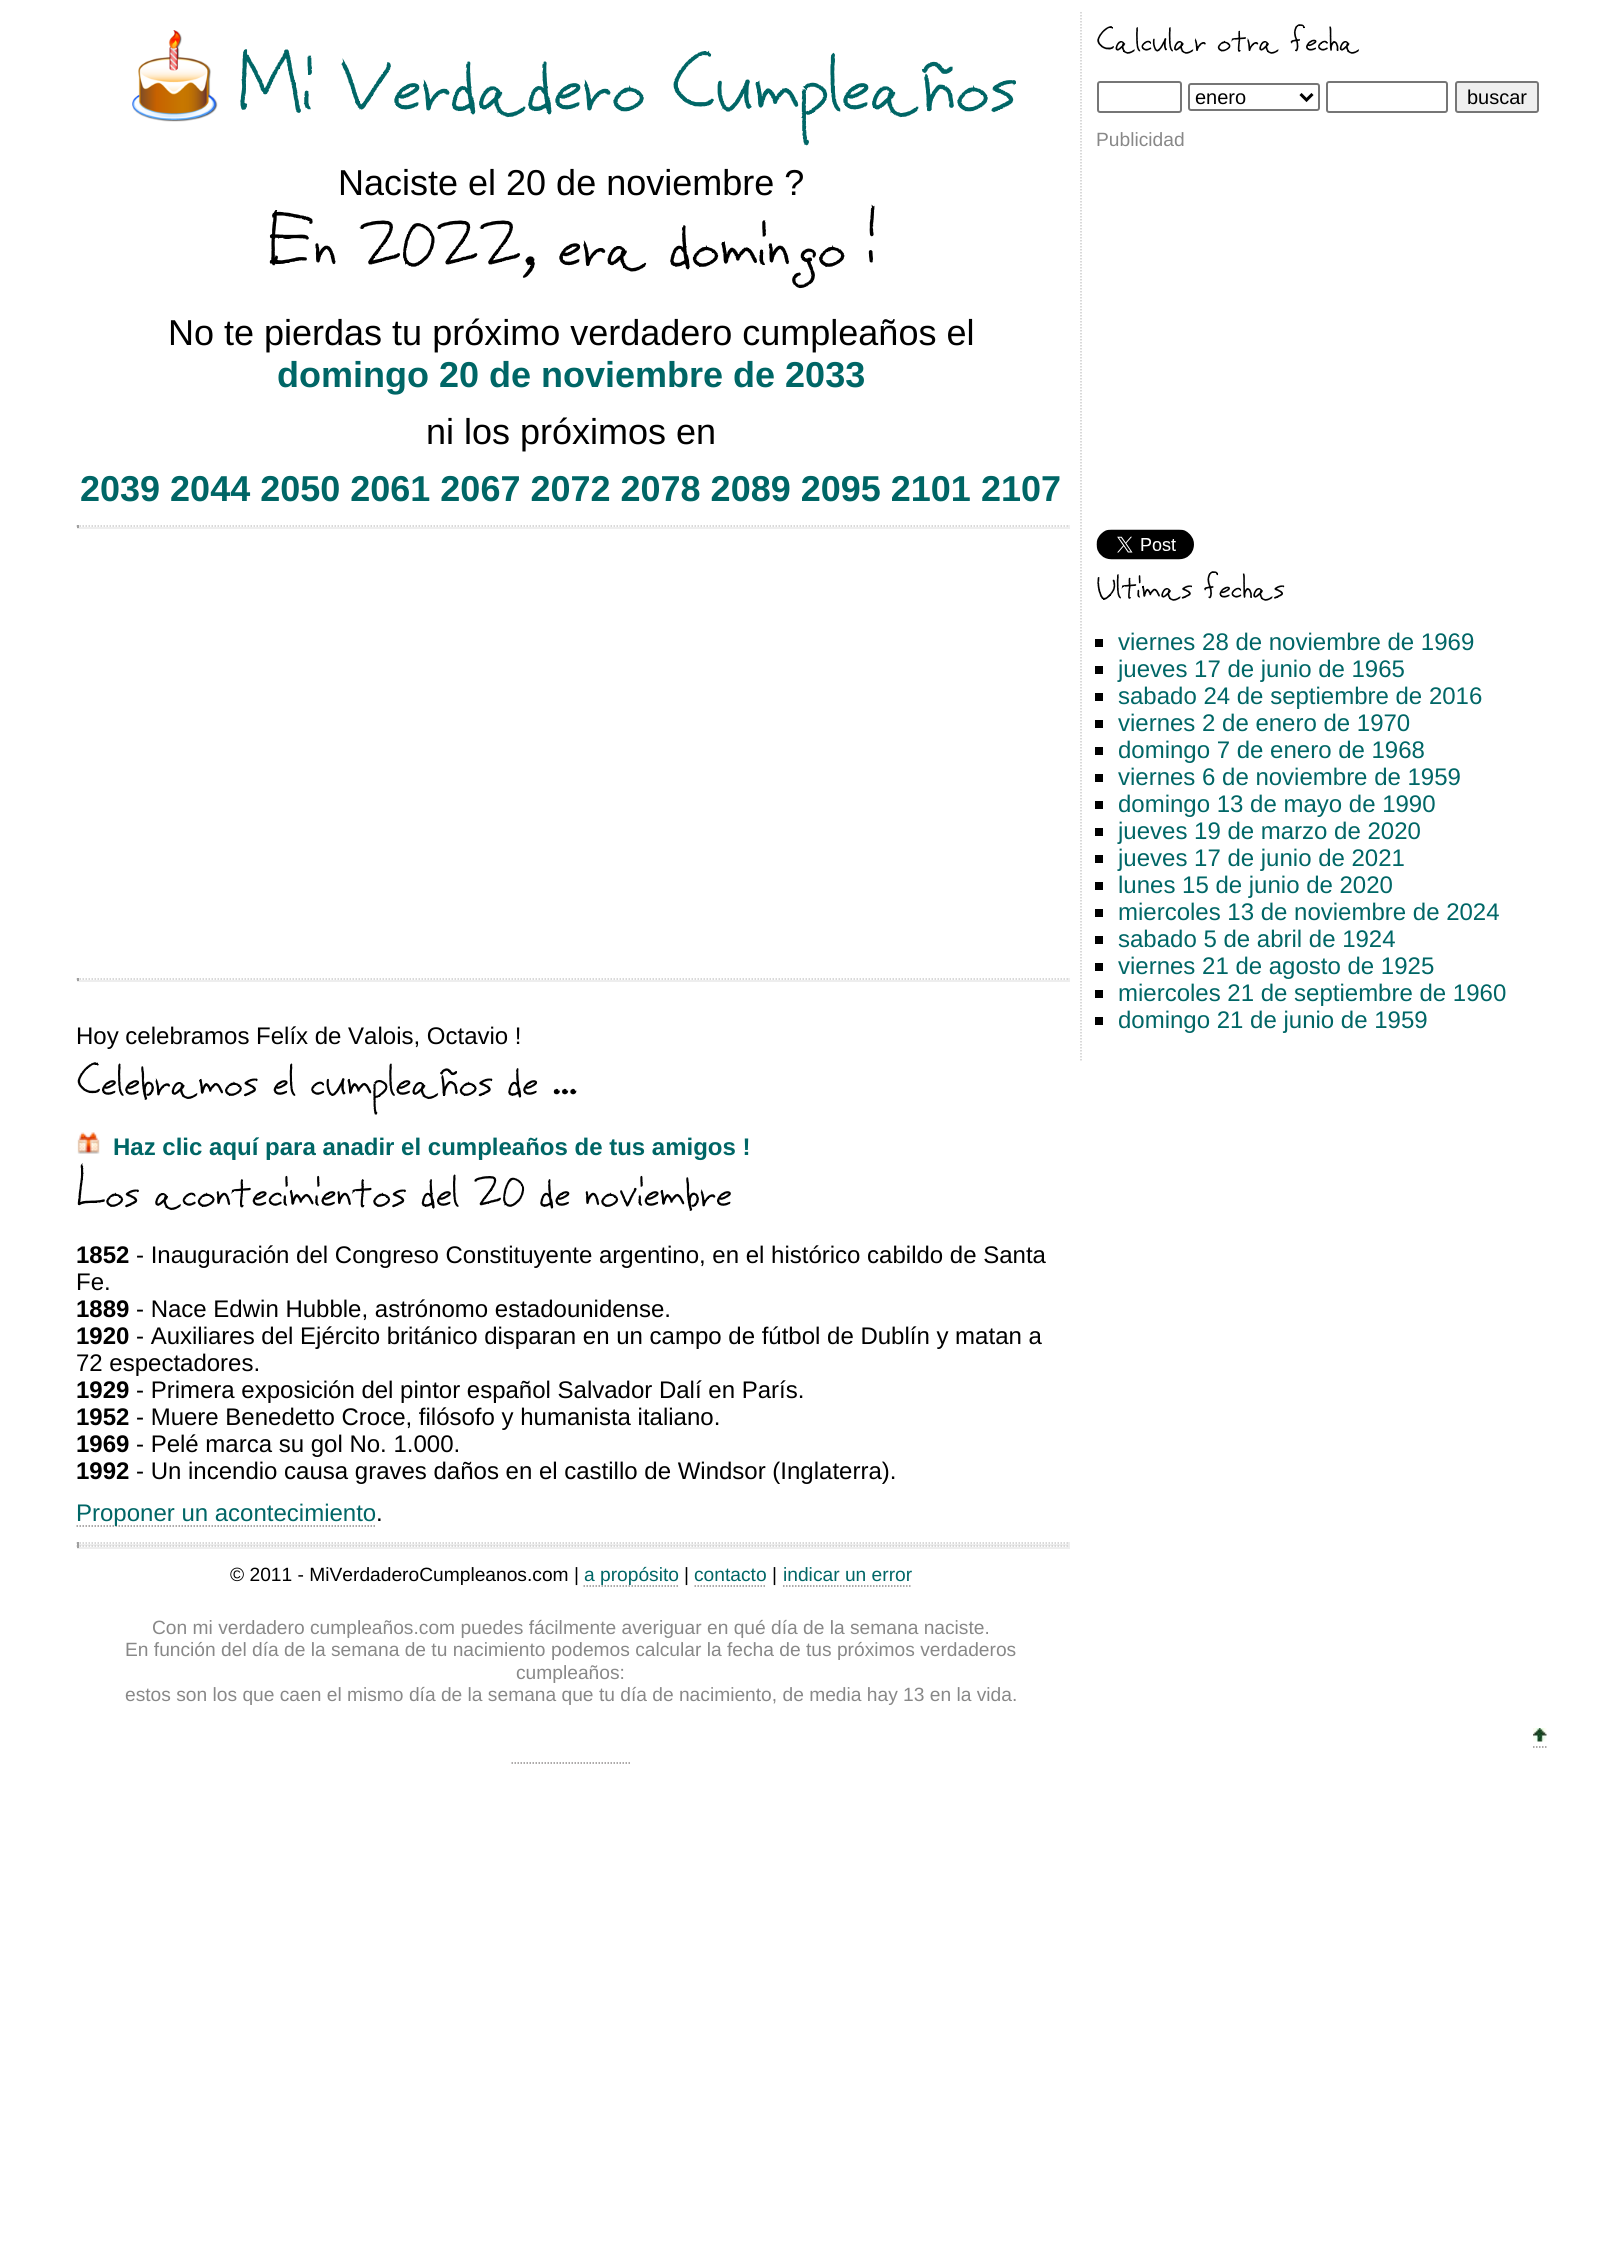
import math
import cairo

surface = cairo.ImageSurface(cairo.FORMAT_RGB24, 1621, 2258)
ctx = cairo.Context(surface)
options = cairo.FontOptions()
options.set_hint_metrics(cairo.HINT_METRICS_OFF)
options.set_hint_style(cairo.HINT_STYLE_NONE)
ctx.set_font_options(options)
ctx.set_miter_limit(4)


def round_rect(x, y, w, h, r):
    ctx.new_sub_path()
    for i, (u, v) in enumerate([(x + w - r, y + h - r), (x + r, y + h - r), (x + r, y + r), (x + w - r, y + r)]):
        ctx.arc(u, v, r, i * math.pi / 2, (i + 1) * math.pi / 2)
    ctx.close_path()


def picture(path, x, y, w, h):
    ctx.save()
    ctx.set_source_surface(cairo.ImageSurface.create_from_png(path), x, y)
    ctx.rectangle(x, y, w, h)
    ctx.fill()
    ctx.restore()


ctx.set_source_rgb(1, 1, 1)
ctx.paint()
picture("img1.png", 132, 30, 86, 92)
ctx.select_font_face("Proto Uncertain", cairo.FONT_SLANT_NORMAL, cairo.FONT_WEIGHT_BOLD)
ctx.set_font_size(86.5)
ctx.set_source_rgb(0, 0.4, 0.4)
ctx.move_to(237, 108)
ctx.show_text("Mi Verdadero Cumpleaños")
ctx.select_font_face("Liberation Sans")
ctx.set_font_size(36)
ctx.set_source_rgb(0, 0, 0)
ctx.move_to(338, 195)
ctx.show_text("Naciste el 20 de noviembre ?")
ctx.select_font_face("Proto Uncertain", cairo.FONT_SLANT_NORMAL, cairo.FONT_WEIGHT_BOLD)
ctx.set_font_size(72)
ctx.move_to(267, 264)
ctx.show_text("En 2022, era domingo !")
ctx.select_font_face("Liberation Sans")
ctx.set_font_size(36)
ctx.move_to(168, 345)
ctx.show_text("No te pierdas tu próximo verdadero cumpleaños el")
ctx.select_font_face("Liberation Sans", cairo.FONT_SLANT_NORMAL, cairo.FONT_WEIGHT_BOLD)
ctx.set_source_rgb(0, 0.4, 0.4)
ctx.move_to(277, 387)
ctx.show_text("domingo 20 de noviembre de 2033")
ctx.select_font_face("Liberation Sans")
ctx.set_source_rgb(0, 0, 0)
ctx.move_to(426, 444)
ctx.show_text("ni los próximos en")
ctx.select_font_face("Liberation Sans", cairo.FONT_SLANT_NORMAL, cairo.FONT_WEIGHT_BOLD)
ctx.set_source_rgb(0, 0.4, 0.4)
ctx.move_to(80, 501)
ctx.show_text("2039 2044 2050 2061 2067 2072 2078 2089 2095 2101 2107")
ctx.new_path()
ctx.move_to(76.5, 526)
ctx.line_to(1069.5, 526)
ctx.set_source_rgb(0.8, 0.8, 0.8)
ctx.set_line_width(1.5)
ctx.set_dash([1.5, 1.5])
ctx.stroke()
ctx.set_source_rgb(0.933, 0.933, 0.933)
ctx.rectangle(1068, 525, 2, 3)
ctx.fill()
ctx.rectangle(77, 527, 993, 2)
ctx.fill()
ctx.set_source_rgb(0.624, 0.624, 0.624)
ctx.rectangle(77, 525, 2, 3)
ctx.fill()
ctx.new_path()
ctx.move_to(76.5, 979)
ctx.line_to(1069.5, 979)
ctx.set_source_rgb(0.8, 0.8, 0.8)
ctx.stroke()
ctx.set_source_rgb(0.933, 0.933, 0.933)
ctx.rectangle(1068, 978, 2, 3)
ctx.fill()
ctx.rectangle(77, 980, 993, 2)
ctx.fill()
ctx.set_source_rgb(0.624, 0.624, 0.624)
ctx.rectangle(77, 978, 2, 3)
ctx.fill()
ctx.select_font_face("Liberation Sans")
ctx.set_font_size(24)
ctx.set_source_rgb(0, 0, 0)
ctx.move_to(76, 1044)
ctx.show_text("Hoy celebramos Felíx de Valois, Octavio !")
ctx.select_font_face("Proto Uncertain", cairo.FONT_SLANT_NORMAL, cairo.FONT_WEIGHT_BOLD)
ctx.set_font_size(48)
ctx.move_to(76, 1094)
ctx.show_text("Celebramos el cumpleaños de ...")
picture("img2.png", 77, 1132, 23, 22)
ctx.select_font_face("Liberation Sans", cairo.FONT_SLANT_NORMAL, cairo.FONT_WEIGHT_BOLD)
ctx.set_font_size(24)
ctx.set_source_rgb(0, 0.4, 0.4)
ctx.move_to(113, 1155)
ctx.show_text("Haz clic aquí para anadir el cumpleaños de tus amigos !")
ctx.select_font_face("Proto Uncertain", cairo.FONT_SLANT_NORMAL, cairo.FONT_WEIGHT_BOLD)
ctx.set_font_size(48)
ctx.set_source_rgb(0, 0, 0)
ctx.move_to(76, 1205)
ctx.show_text("Los acontecimientos del 20 de noviembre")
ctx.select_font_face("Liberation Sans", cairo.FONT_SLANT_NORMAL, cairo.FONT_WEIGHT_BOLD)
ctx.set_font_size(24)
ctx.move_to(76, 1263)
ctx.show_text("1852")
ctx.select_font_face("Liberation Sans")
ctx.move_to(136, 1263)
ctx.show_text("- Inauguración del Congreso Constituyente argentino, en el histórico cabildo de Santa")
ctx.move_to(76, 1290)
ctx.show_text("Fe.")
ctx.select_font_face("Liberation Sans", cairo.FONT_SLANT_NORMAL, cairo.FONT_WEIGHT_BOLD)
ctx.move_to(76, 1317)
ctx.show_text("1889")
ctx.select_font_face("Liberation Sans")
ctx.move_to(136, 1317)
ctx.show_text("- Nace Edwin Hubble, astrónomo estadounidense.")
ctx.select_font_face("Liberation Sans", cairo.FONT_SLANT_NORMAL, cairo.FONT_WEIGHT_BOLD)
ctx.move_to(76, 1344)
ctx.show_text("1920")
ctx.select_font_face("Liberation Sans")
ctx.move_to(136, 1344)
ctx.show_text("- Auxiliares del Ejército británico disparan en un campo de fútbol de Dublín y matan a")
ctx.move_to(76, 1371)
ctx.show_text("72 espectadores.")
ctx.select_font_face("Liberation Sans", cairo.FONT_SLANT_NORMAL, cairo.FONT_WEIGHT_BOLD)
ctx.move_to(76, 1398)
ctx.show_text("1929")
ctx.select_font_face("Liberation Sans")
ctx.move_to(136, 1398)
ctx.show_text("- Primera exposición del pintor español Salvador Dalí en París.")
ctx.select_font_face("Liberation Sans", cairo.FONT_SLANT_NORMAL, cairo.FONT_WEIGHT_BOLD)
ctx.move_to(76, 1425)
ctx.show_text("1952")
ctx.select_font_face("Liberation Sans")
ctx.move_to(136, 1425)
ctx.show_text("- Muere Benedetto Croce, filósofo y humanista italiano.")
ctx.select_font_face("Liberation Sans", cairo.FONT_SLANT_NORMAL, cairo.FONT_WEIGHT_BOLD)
ctx.move_to(76, 1452)
ctx.show_text("1969")
ctx.select_font_face("Liberation Sans")
ctx.move_to(136, 1452)
ctx.show_text("- Pelé marca su gol No. 1.000.")
ctx.select_font_face("Liberation Sans", cairo.FONT_SLANT_NORMAL, cairo.FONT_WEIGHT_BOLD)
ctx.move_to(76, 1479)
ctx.show_text("1992")
ctx.select_font_face("Liberation Sans")
ctx.move_to(136, 1479)
ctx.show_text("- Un incendio causa graves daños en el castillo de Windsor (Inglaterra).")
ctx.new_path()
ctx.move_to(76.5, 1526)
ctx.line_to(376.5, 1526)
ctx.set_source_rgb(0.569, 0.557, 0.557)
ctx.stroke()
ctx.set_source_rgb(0, 0.4, 0.4)
ctx.move_to(76, 1521)
ctx.show_text("Proponer un acontecimiento")
ctx.set_source_rgb(0, 0, 0)
ctx.move_to(376, 1521)
ctx.show_text(".")
ctx.new_path()
ctx.move_to(76.5, 1543)
ctx.line_to(1069.5, 1543)
ctx.set_source_rgb(0.8, 0.8, 0.8)
ctx.stroke()
ctx.set_source_rgb(0.933, 0.933, 0.933)
ctx.rectangle(1068, 1542, 2, 3)
ctx.fill()
ctx.rectangle(77, 1544, 993, 2)
ctx.fill()
ctx.set_source_rgb(0.624, 0.624, 0.624)
ctx.rectangle(77, 1542, 2, 3)
ctx.fill()
ctx.new_path()
ctx.move_to(1081, 12)
ctx.line_to(1081, 1060.5)
ctx.set_source_rgb(0.8, 0.8, 0.8)
ctx.stroke()
ctx.select_font_face("Proto Uncertain", cairo.FONT_SLANT_NORMAL, cairo.FONT_WEIGHT_BOLD)
ctx.set_font_size(36)
ctx.set_source_rgb(0, 0, 0)
ctx.move_to(1096, 50)
ctx.show_text("Calcular otra fecha")
round_rect(1098, 82, 83, 30, 2)
ctx.set_source_rgb(0.463, 0.463, 0.463)
ctx.set_line_width(2)
ctx.set_dash([])
ctx.stroke()
round_rect(1189, 84, 130, 26, 2)
ctx.stroke()
ctx.new_path()
ctx.move_to(1300.5, 94)
ctx.line_to(1306.5, 100)
ctx.line_to(1312.5, 94)
ctx.set_source_rgb(0, 0, 0)
ctx.set_line_width(3)
ctx.stroke()
ctx.select_font_face("Liberation Sans")
ctx.set_font_size(20)
ctx.move_to(1195, 104)
ctx.show_text("enero")
round_rect(1327, 82, 120, 30, 2)
ctx.set_source_rgb(0.463, 0.463, 0.463)
ctx.set_line_width(2)
ctx.stroke()
ctx.set_source_rgb(0.937, 0.937, 0.937)
round_rect(1456, 82, 82, 30, 2)
ctx.fill_preserve()
ctx.set_source_rgb(0.463, 0.463, 0.463)
ctx.stroke()
ctx.set_source_rgb(0, 0, 0)
ctx.move_to(1467, 104)
ctx.show_text("buscar")
ctx.set_font_size(19.2)
ctx.set_source_rgb(0.533, 0.533, 0.533)
ctx.move_to(1096, 146)
ctx.show_text("Publicidad")
picture("img3.png", 1096, 529, 98, 31)
ctx.select_font_face("Proto Uncertain", cairo.FONT_SLANT_NORMAL, cairo.FONT_WEIGHT_BOLD)
ctx.set_font_size(36)
ctx.set_source_rgb(0, 0, 0)
ctx.move_to(1096, 597)
ctx.show_text("Ultimas fechas")
ctx.rectangle(1095, 639, 8, 8)
ctx.fill()
ctx.select_font_face("Liberation Sans")
ctx.set_font_size(24)
ctx.set_source_rgb(0, 0.4, 0.4)
ctx.move_to(1118, 650)
ctx.show_text("viernes 28 de noviembre de 1969")
ctx.set_source_rgb(0, 0, 0)
ctx.rectangle(1095, 666, 8, 8)
ctx.fill()
ctx.set_source_rgb(0, 0.4, 0.4)
ctx.move_to(1118, 677)
ctx.show_text("jueves 17 de junio de 1965")
ctx.set_source_rgb(0, 0, 0)
ctx.rectangle(1095, 693, 8, 8)
ctx.fill()
ctx.set_source_rgb(0, 0.4, 0.4)
ctx.move_to(1118, 704)
ctx.show_text("sabado 24 de septiembre de 2016")
ctx.set_source_rgb(0, 0, 0)
ctx.rectangle(1095, 720, 8, 8)
ctx.fill()
ctx.set_source_rgb(0, 0.4, 0.4)
ctx.move_to(1118, 731)
ctx.show_text("viernes 2 de enero de 1970")
ctx.set_source_rgb(0, 0, 0)
ctx.rectangle(1095, 747, 8, 8)
ctx.fill()
ctx.set_source_rgb(0, 0.4, 0.4)
ctx.move_to(1118, 758)
ctx.show_text("domingo 7 de enero de 1968")
ctx.set_source_rgb(0, 0, 0)
ctx.rectangle(1095, 774, 8, 8)
ctx.fill()
ctx.set_source_rgb(0, 0.4, 0.4)
ctx.move_to(1118, 785)
ctx.show_text("viernes 6 de noviembre de 1959")
ctx.set_source_rgb(0, 0, 0)
ctx.rectangle(1095, 801, 8, 8)
ctx.fill()
ctx.set_source_rgb(0, 0.4, 0.4)
ctx.move_to(1118, 812)
ctx.show_text("domingo 13 de mayo de 1990")
ctx.set_source_rgb(0, 0, 0)
ctx.rectangle(1095, 828, 8, 8)
ctx.fill()
ctx.set_source_rgb(0, 0.4, 0.4)
ctx.move_to(1118, 839)
ctx.show_text("jueves 19 de marzo de 2020")
ctx.set_source_rgb(0, 0, 0)
ctx.rectangle(1095, 855, 8, 8)
ctx.fill()
ctx.set_source_rgb(0, 0.4, 0.4)
ctx.move_to(1118, 866)
ctx.show_text("jueves 17 de junio de 2021")
ctx.set_source_rgb(0, 0, 0)
ctx.rectangle(1095, 882, 8, 8)
ctx.fill()
ctx.set_source_rgb(0, 0.4, 0.4)
ctx.move_to(1118, 893)
ctx.show_text("lunes 15 de junio de 2020")
ctx.set_source_rgb(0, 0, 0)
ctx.rectangle(1095, 909, 8, 8)
ctx.fill()
ctx.set_source_rgb(0, 0.4, 0.4)
ctx.move_to(1118, 920)
ctx.show_text("miercoles 13 de noviembre de 2024")
ctx.set_source_rgb(0, 0, 0)
ctx.rectangle(1095, 936, 8, 8)
ctx.fill()
ctx.set_source_rgb(0, 0.4, 0.4)
ctx.move_to(1118, 947)
ctx.show_text("sabado 5 de abril de 1924")
ctx.set_source_rgb(0, 0, 0)
ctx.rectangle(1095, 963, 8, 8)
ctx.fill()
ctx.set_source_rgb(0, 0.4, 0.4)
ctx.move_to(1118, 974)
ctx.show_text("viernes 21 de agosto de 1925")
ctx.set_source_rgb(0, 0, 0)
ctx.rectangle(1095, 990, 8, 8)
ctx.fill()
ctx.set_source_rgb(0, 0.4, 0.4)
ctx.move_to(1118, 1001)
ctx.show_text("miercoles 21 de septiembre de 1960")
ctx.set_source_rgb(0, 0, 0)
ctx.rectangle(1095, 1017, 8, 8)
ctx.fill()
ctx.set_source_rgb(0, 0.4, 0.4)
ctx.move_to(1118, 1028)
ctx.show_text("domingo 21 de junio de 1959")
ctx.new_path()
ctx.move_to(76.5, 1546)
ctx.line_to(1069.5, 1546)
ctx.set_source_rgb(0.8, 0.8, 0.8)
ctx.set_line_width(1.5)
ctx.set_dash([1.5, 1.5])
ctx.stroke()
ctx.set_source_rgb(0.933, 0.933, 0.933)
ctx.rectangle(1068, 1545, 2, 3)
ctx.fill()
ctx.rectangle(77, 1547, 993, 2)
ctx.fill()
ctx.set_source_rgb(0.624, 0.624, 0.624)
ctx.rectangle(77, 1545, 2, 3)
ctx.fill()
ctx.set_font_size(19.2)
ctx.set_source_rgb(0, 0, 0)
ctx.move_to(230, 1581)
ctx.show_text("© 2011 - MiVerdaderoCumpleanos.com |")
ctx.set_source_rgb(0, 0.4, 0.4)
ctx.move_to(584, 1581)
ctx.show_text("a propósito")
ctx.new_path()
ctx.move_to(583.5, 1586)
ctx.line_to(679.5, 1586)
ctx.set_source_rgb(0.569, 0.557, 0.557)
ctx.stroke()
ctx.set_source_rgb(0, 0, 0)
ctx.move_to(684, 1581)
ctx.show_text("|")
ctx.set_source_rgb(0, 0.4, 0.4)
ctx.move_to(694, 1581)
ctx.show_text("contacto")
ctx.new_path()
ctx.move_to(694.5, 1586)
ctx.line_to(766.5, 1586)
ctx.set_source_rgb(0.569, 0.557, 0.557)
ctx.stroke()
ctx.set_source_rgb(0, 0, 0)
ctx.move_to(772, 1581)
ctx.show_text("|")
ctx.set_source_rgb(0, 0.4, 0.4)
ctx.move_to(783, 1581)
ctx.show_text("indicar un error")
ctx.new_path()
ctx.move_to(783, 1586)
ctx.line_to(912, 1586)
ctx.set_source_rgb(0.569, 0.557, 0.557)
ctx.stroke()
ctx.set_source_rgb(0.533, 0.533, 0.533)
ctx.move_to(152, 1634)
ctx.show_text("Con mi verdadero cumpleaños.com puedes fácilmente averiguar en qué día de la semana naciste.")
ctx.move_to(125, 1656)
ctx.show_text("En función del día de la semana de tu nacimiento podemos calcular la fecha de tus próximos verdaderos")
ctx.move_to(516, 1679)
ctx.show_text("cumpleaños:")
ctx.move_to(125, 1701)
ctx.show_text("estos son los que caen el mismo día de la semana que tu día de nacimiento, de media hay 13 en la vida.")
picture("img4.png", 1533, 1728, 14, 14)
ctx.new_path()
ctx.move_to(1533, 1747)
ctx.line_to(1546.5, 1747)
ctx.set_source_rgb(0.569, 0.557, 0.557)
ctx.stroke()
ctx.new_path()
ctx.move_to(511.5, 1763)
ctx.line_to(631.5, 1763)
ctx.stroke()
surface.write_to_png("page.png")
